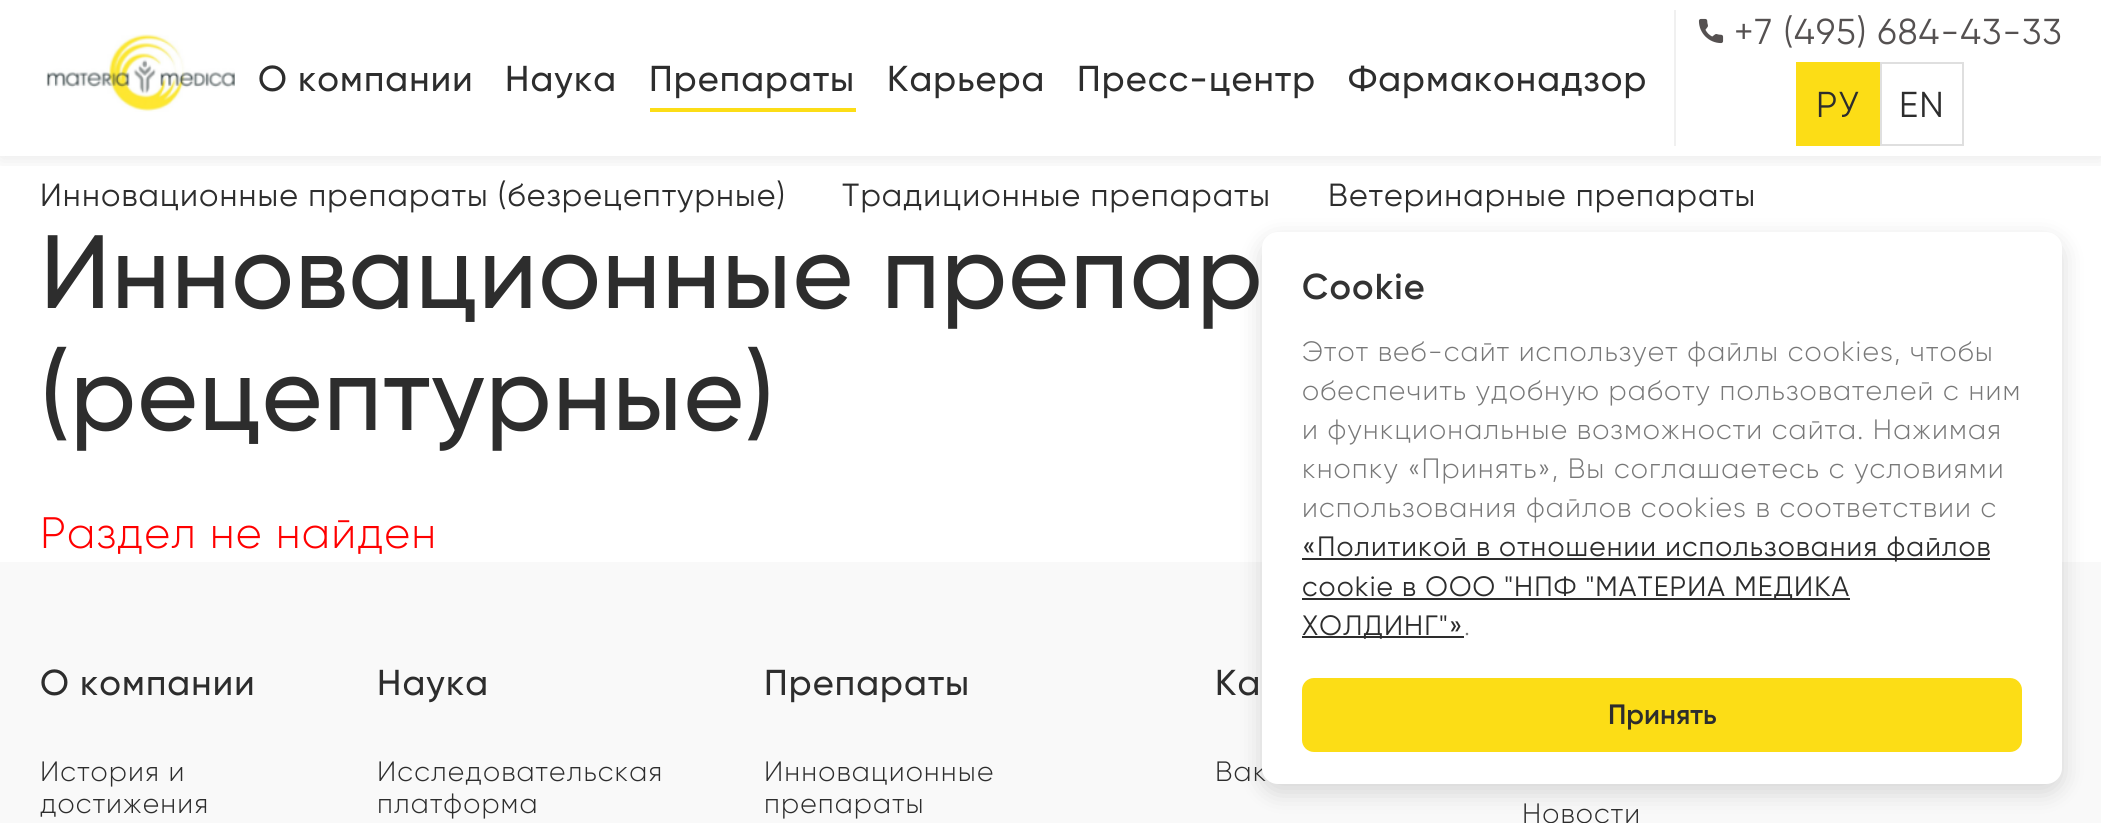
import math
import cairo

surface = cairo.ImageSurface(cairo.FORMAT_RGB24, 2101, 823)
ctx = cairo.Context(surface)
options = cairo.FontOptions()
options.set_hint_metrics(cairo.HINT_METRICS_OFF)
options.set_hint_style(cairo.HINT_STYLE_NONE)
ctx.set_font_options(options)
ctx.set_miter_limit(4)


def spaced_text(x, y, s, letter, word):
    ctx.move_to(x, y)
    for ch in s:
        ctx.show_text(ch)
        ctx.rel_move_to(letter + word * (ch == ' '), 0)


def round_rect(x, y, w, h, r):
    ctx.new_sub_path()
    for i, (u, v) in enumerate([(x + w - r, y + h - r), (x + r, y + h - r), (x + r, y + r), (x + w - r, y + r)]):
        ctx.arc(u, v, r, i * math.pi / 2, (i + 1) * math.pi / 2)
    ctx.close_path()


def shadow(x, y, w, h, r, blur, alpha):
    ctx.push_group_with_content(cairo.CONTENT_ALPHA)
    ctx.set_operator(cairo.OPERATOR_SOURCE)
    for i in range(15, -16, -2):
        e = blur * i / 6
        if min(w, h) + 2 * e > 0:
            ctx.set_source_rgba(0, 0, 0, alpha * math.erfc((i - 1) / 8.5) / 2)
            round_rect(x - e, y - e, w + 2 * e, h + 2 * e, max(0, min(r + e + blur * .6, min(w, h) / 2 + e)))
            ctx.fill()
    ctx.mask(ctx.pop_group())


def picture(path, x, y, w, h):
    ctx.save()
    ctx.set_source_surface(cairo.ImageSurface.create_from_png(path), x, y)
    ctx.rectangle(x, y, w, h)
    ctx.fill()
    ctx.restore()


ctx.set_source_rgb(1, 1, 1)
ctx.paint()
ctx.save()
ctx.rectangle(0, 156, 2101, 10)
ctx.clip()
ctx.set_source_rgb(0, 0, 0)
shadow(0, 2, 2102, 156, 0, 10, 0.1)
ctx.restore()
picture("img1.png", 46, 34, 189, 78)
ctx.select_font_face("Gilroy Medium")
ctx.set_font_size(36)
ctx.set_source_rgb(0.176, 0.176, 0.176)
spaced_text(258, 91, "О компании", 1.1, 0)
spaced_text(505, 91, "Наука", 1.1, 0)
spaced_text(649, 91, "Препараты", 1.1, 0)
ctx.set_source_rgb(0.988, 0.867, 0.086)
ctx.rectangle(650, 108, 206, 4)
ctx.fill()
ctx.set_source_rgb(0.176, 0.176, 0.176)
spaced_text(887, 91, "Карьера", 1.1, 0)
spaced_text(1077, 91, "Пресс-центр", 1.1, 0)
spaced_text(1348, 91, "Фармаконадзор", 1.1, 0)
ctx.set_source_rgb(0.941, 0.941, 0.941)
ctx.rectangle(1674, 10, 2, 136)
ctx.fill()
picture("img2.png", 1698, 18, 26, 26)
ctx.select_font_face("Gilroy")
ctx.set_source_rgb(0.333, 0.318, 0.318)
spaced_text(1734, 44, "+7 (495) 684-43-33", 1.1, 0)
ctx.set_source_rgb(0.988, 0.867, 0.086)
ctx.rectangle(1796, 62, 84, 84)
ctx.fill()
ctx.set_source_rgb(0.176, 0.176, 0.176)
spaced_text(1816, 117, "РУ", 1.1, 0)
ctx.rectangle(1881, 63, 82, 82)
ctx.set_source_rgb(0.875, 0.875, 0.875)
ctx.stroke()
ctx.set_source_rgb(0.176, 0.176, 0.176)
spaced_text(1899, 117, "EN", 1.1, 0)
ctx.set_font_size(32)
spaced_text(40, 206, "Инновационные препараты (безрецептурные)", 1.1, 0)
spaced_text(842, 206, "Традиционные препараты", 1.1, 0)
spaced_text(1328, 206, "Ветеринарные препараты", 1.1, 0)
ctx.select_font_face("Gilroy Medium")
ctx.set_font_size(104)
spaced_text(40, 308, "Инновационные препар", 1.1, 0)
spaced_text(40, 430, "(рецептурные)", 1.1, 0)
ctx.select_font_face("Gilroy Light")
ctx.set_font_size(44)
ctx.set_source_rgb(1, 0, 0)
spaced_text(40, 548, "Раздел не найден", 1.1, 0)
ctx.set_source_rgb(0.976, 0.976, 0.976)
ctx.rectangle(0, 562, 2101, 261)
ctx.fill()
ctx.set_source_rgb(0, 0, 0)
shadow(1262, 240, 800, 552, 16, 12, 0.15)
ctx.set_font_size(28)
ctx.set_source_rgb(0.176, 0.176, 0.176)
spaced_text(1215, 781, "Вак", 1.1, 0)
ctx.set_source_rgb(1, 1, 1)
round_rect(1262, 232, 800, 552, 16)
ctx.fill()
ctx.select_font_face("Gilroy SemiBold")
ctx.set_font_size(36)
ctx.set_source_rgb(0.2, 0.2, 0.2)
spaced_text(1302, 299, "Cookie", 1.1, 0)
ctx.select_font_face("Gilroy Light")
ctx.set_font_size(28)
ctx.set_source_rgb(0.471, 0.471, 0.471)
spaced_text(1302, 361, "Этот веб-сайт использует файлы cookies, чтобы", 1.1, 0)
spaced_text(1302, 400, "обеспечить удобную работу пользователей с ним", 1.1, 0)
spaced_text(1302, 439, "и функциональные возможности сайта. Нажимая", 1.1, 0)
spaced_text(1302, 478, "кнопку «Принять», Вы соглашаетесь с условиями", 1.1, 0)
spaced_text(1302, 517, "использования файлов cookies в соответствии c", 1.1, 0)
ctx.set_source_rgb(0.176, 0.176, 0.176)
ctx.rectangle(1302, 558, 688, 2)
ctx.fill()
ctx.select_font_face("Gilroy")
spaced_text(1302, 556, "«Политикой в отношении использования файлов", 1.1, 0)
ctx.rectangle(1302, 598, 548, 2)
ctx.fill()
spaced_text(1302, 596, "cookie в ООО \"НПФ \"МАТЕРИА МЕДИКА", 1.1, 0)
ctx.rectangle(1302, 636, 162, 2)
ctx.fill()
spaced_text(1302, 635, "ХОЛДИНГ\"»", 1.1, 0)
ctx.select_font_face("Gilroy Light")
ctx.set_source_rgb(0.471, 0.471, 0.471)
spaced_text(1464, 635, ".", 1.1, 0)
ctx.set_source_rgb(0.988, 0.867, 0.086)
round_rect(1302, 678, 720, 74, 12)
ctx.fill()
ctx.select_font_face("Gilroy SemiBold")
ctx.set_source_rgb(0.176, 0.176, 0.176)
ctx.move_to(1608, 724)
ctx.show_text("Принять")
ctx.select_font_face("Gilroy Medium")
ctx.set_font_size(36)
spaced_text(40, 695, "О компании", 1.1, 0)
ctx.select_font_face("Gilroy Light")
ctx.set_font_size(28)
spaced_text(40, 781, "История и", 1.1, 0)
spaced_text(40, 813, "достижения", 1.1, 0)
ctx.select_font_face("Gilroy Medium")
ctx.set_font_size(36)
spaced_text(377, 695, "Наука", 1.1, 0)
ctx.select_font_face("Gilroy Light")
ctx.set_font_size(28)
spaced_text(377, 781, "Исследовательская", 1.1, 0)
spaced_text(377, 813, "платформа", 1.1, 0)
ctx.select_font_face("Gilroy Medium")
ctx.set_font_size(36)
spaced_text(764, 695, "Препараты", 1.1, 0)
ctx.select_font_face("Gilroy Light")
ctx.set_font_size(28)
spaced_text(764, 781, "Инновационные", 1.1, 0)
spaced_text(764, 813, "препараты", 1.1, 0)
ctx.select_font_face("Gilroy Medium")
ctx.set_font_size(36)
spaced_text(1215, 695, "Ка", 1.1, 0)
ctx.select_font_face("Gilroy Light")
ctx.set_font_size(28)
spaced_text(1522, 823, "Новости", 1.1, 0)
surface.write_to_png("page.png")
